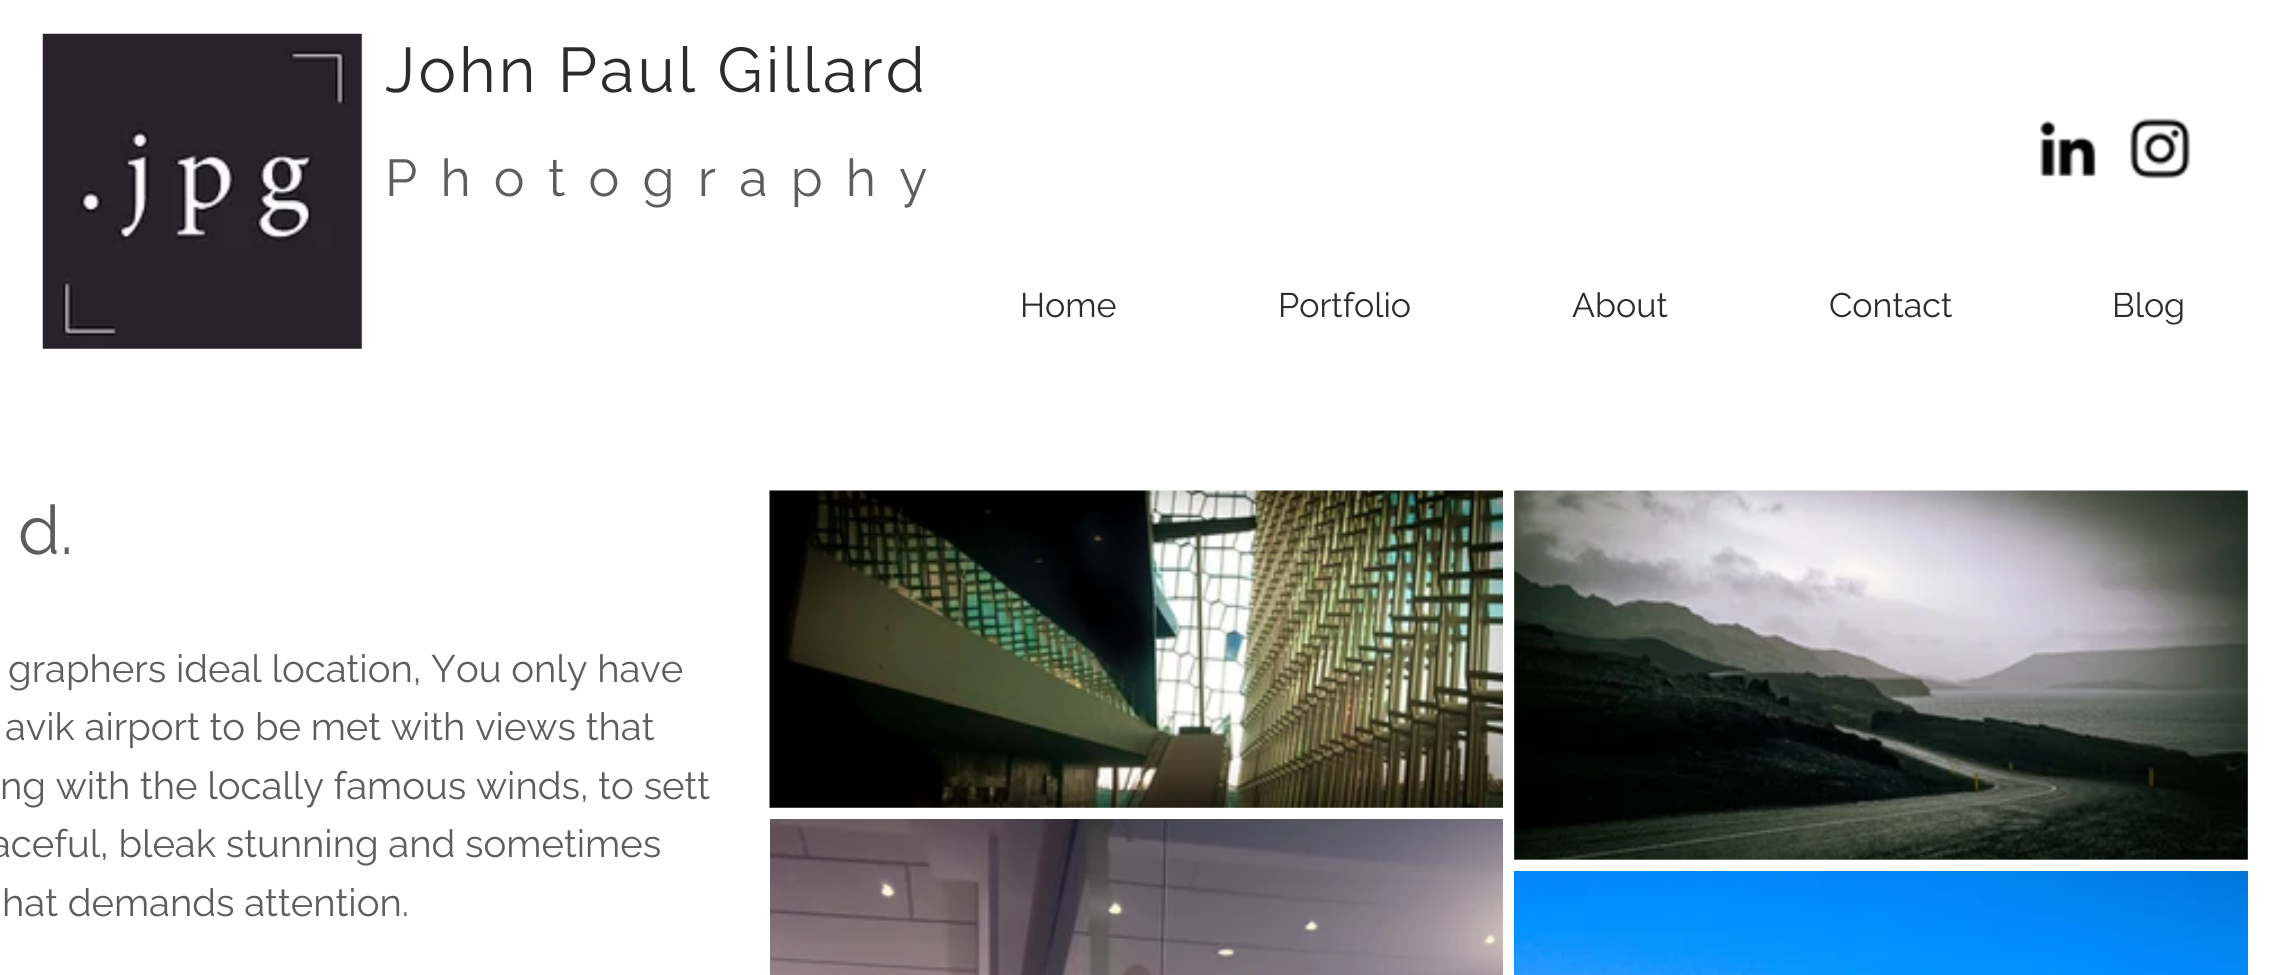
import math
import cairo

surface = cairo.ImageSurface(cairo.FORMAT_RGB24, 2290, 975)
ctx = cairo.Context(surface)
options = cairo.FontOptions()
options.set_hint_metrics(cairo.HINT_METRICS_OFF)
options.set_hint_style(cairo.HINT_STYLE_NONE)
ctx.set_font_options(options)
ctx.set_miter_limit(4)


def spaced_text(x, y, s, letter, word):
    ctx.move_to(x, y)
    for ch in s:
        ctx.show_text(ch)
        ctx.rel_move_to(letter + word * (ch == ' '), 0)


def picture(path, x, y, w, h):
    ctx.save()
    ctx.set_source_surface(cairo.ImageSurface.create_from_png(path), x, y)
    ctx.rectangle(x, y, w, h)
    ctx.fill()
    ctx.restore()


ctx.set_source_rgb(1, 1, 1)
ctx.paint()
picture("img1.png", 42, 33, 321, 316)
ctx.select_font_face("Raleway")
ctx.set_font_size(63)
ctx.set_source_rgb(0.173, 0.173, 0.169)
spaced_text(385, 92, "John Paul Gillard", 3.1, 0)
ctx.set_font_size(51.75)
ctx.set_source_rgb(0.369, 0.365, 0.365)
spaced_text(385, 196, "Photography", 23.25, 0)
picture("img2.png", 2040, 120, 56, 57)
picture("img3.png", 2130, 118, 61, 61)
ctx.set_font_size(34)
ctx.set_source_rgb(0.173, 0.173, 0.169)
ctx.move_to(1020, 317)
ctx.show_text("Home")
ctx.move_to(1278, 317)
ctx.show_text("Portfolio")
ctx.move_to(1572, 317)
ctx.show_text("About")
ctx.move_to(1829, 317)
ctx.show_text("Contact")
ctx.move_to(2112, 317)
ctx.show_text("Blog")
ctx.set_font_size(68)
ctx.set_source_rgb(0.369, 0.365, 0.365)
ctx.move_to(18, 554)
ctx.show_text("d.")
picture("img4.png", 769, 490, 734, 318)
ctx.set_source_rgb(0.675, 0.663, 0.663)
ctx.rectangle(1514, 491, 734, 369)
ctx.fill()
picture("img5.png", 1514, 490, 734, 370)
picture("img6.png", 770, 819, 733, 156)
picture("img7.png", 1514, 871, 734, 104)
ctx.set_font_size(38.25)
ctx.set_source_rgb(0.369, 0.365, 0.365)
ctx.move_to(8, 682)
ctx.show_text("graphers ideal location, You only have")
ctx.move_to(5, 740)
ctx.show_text("avik airport to be met with views that")
ctx.move_to(0, 799)
ctx.show_text("ng with the locally famous winds, to sett")
ctx.move_to(-10, 857)
ctx.show_text("aceful, bleak stunning and sometimes")
ctx.move_to(2, 916)
ctx.show_text("hat demands attention.")
surface.write_to_png("page.png")
